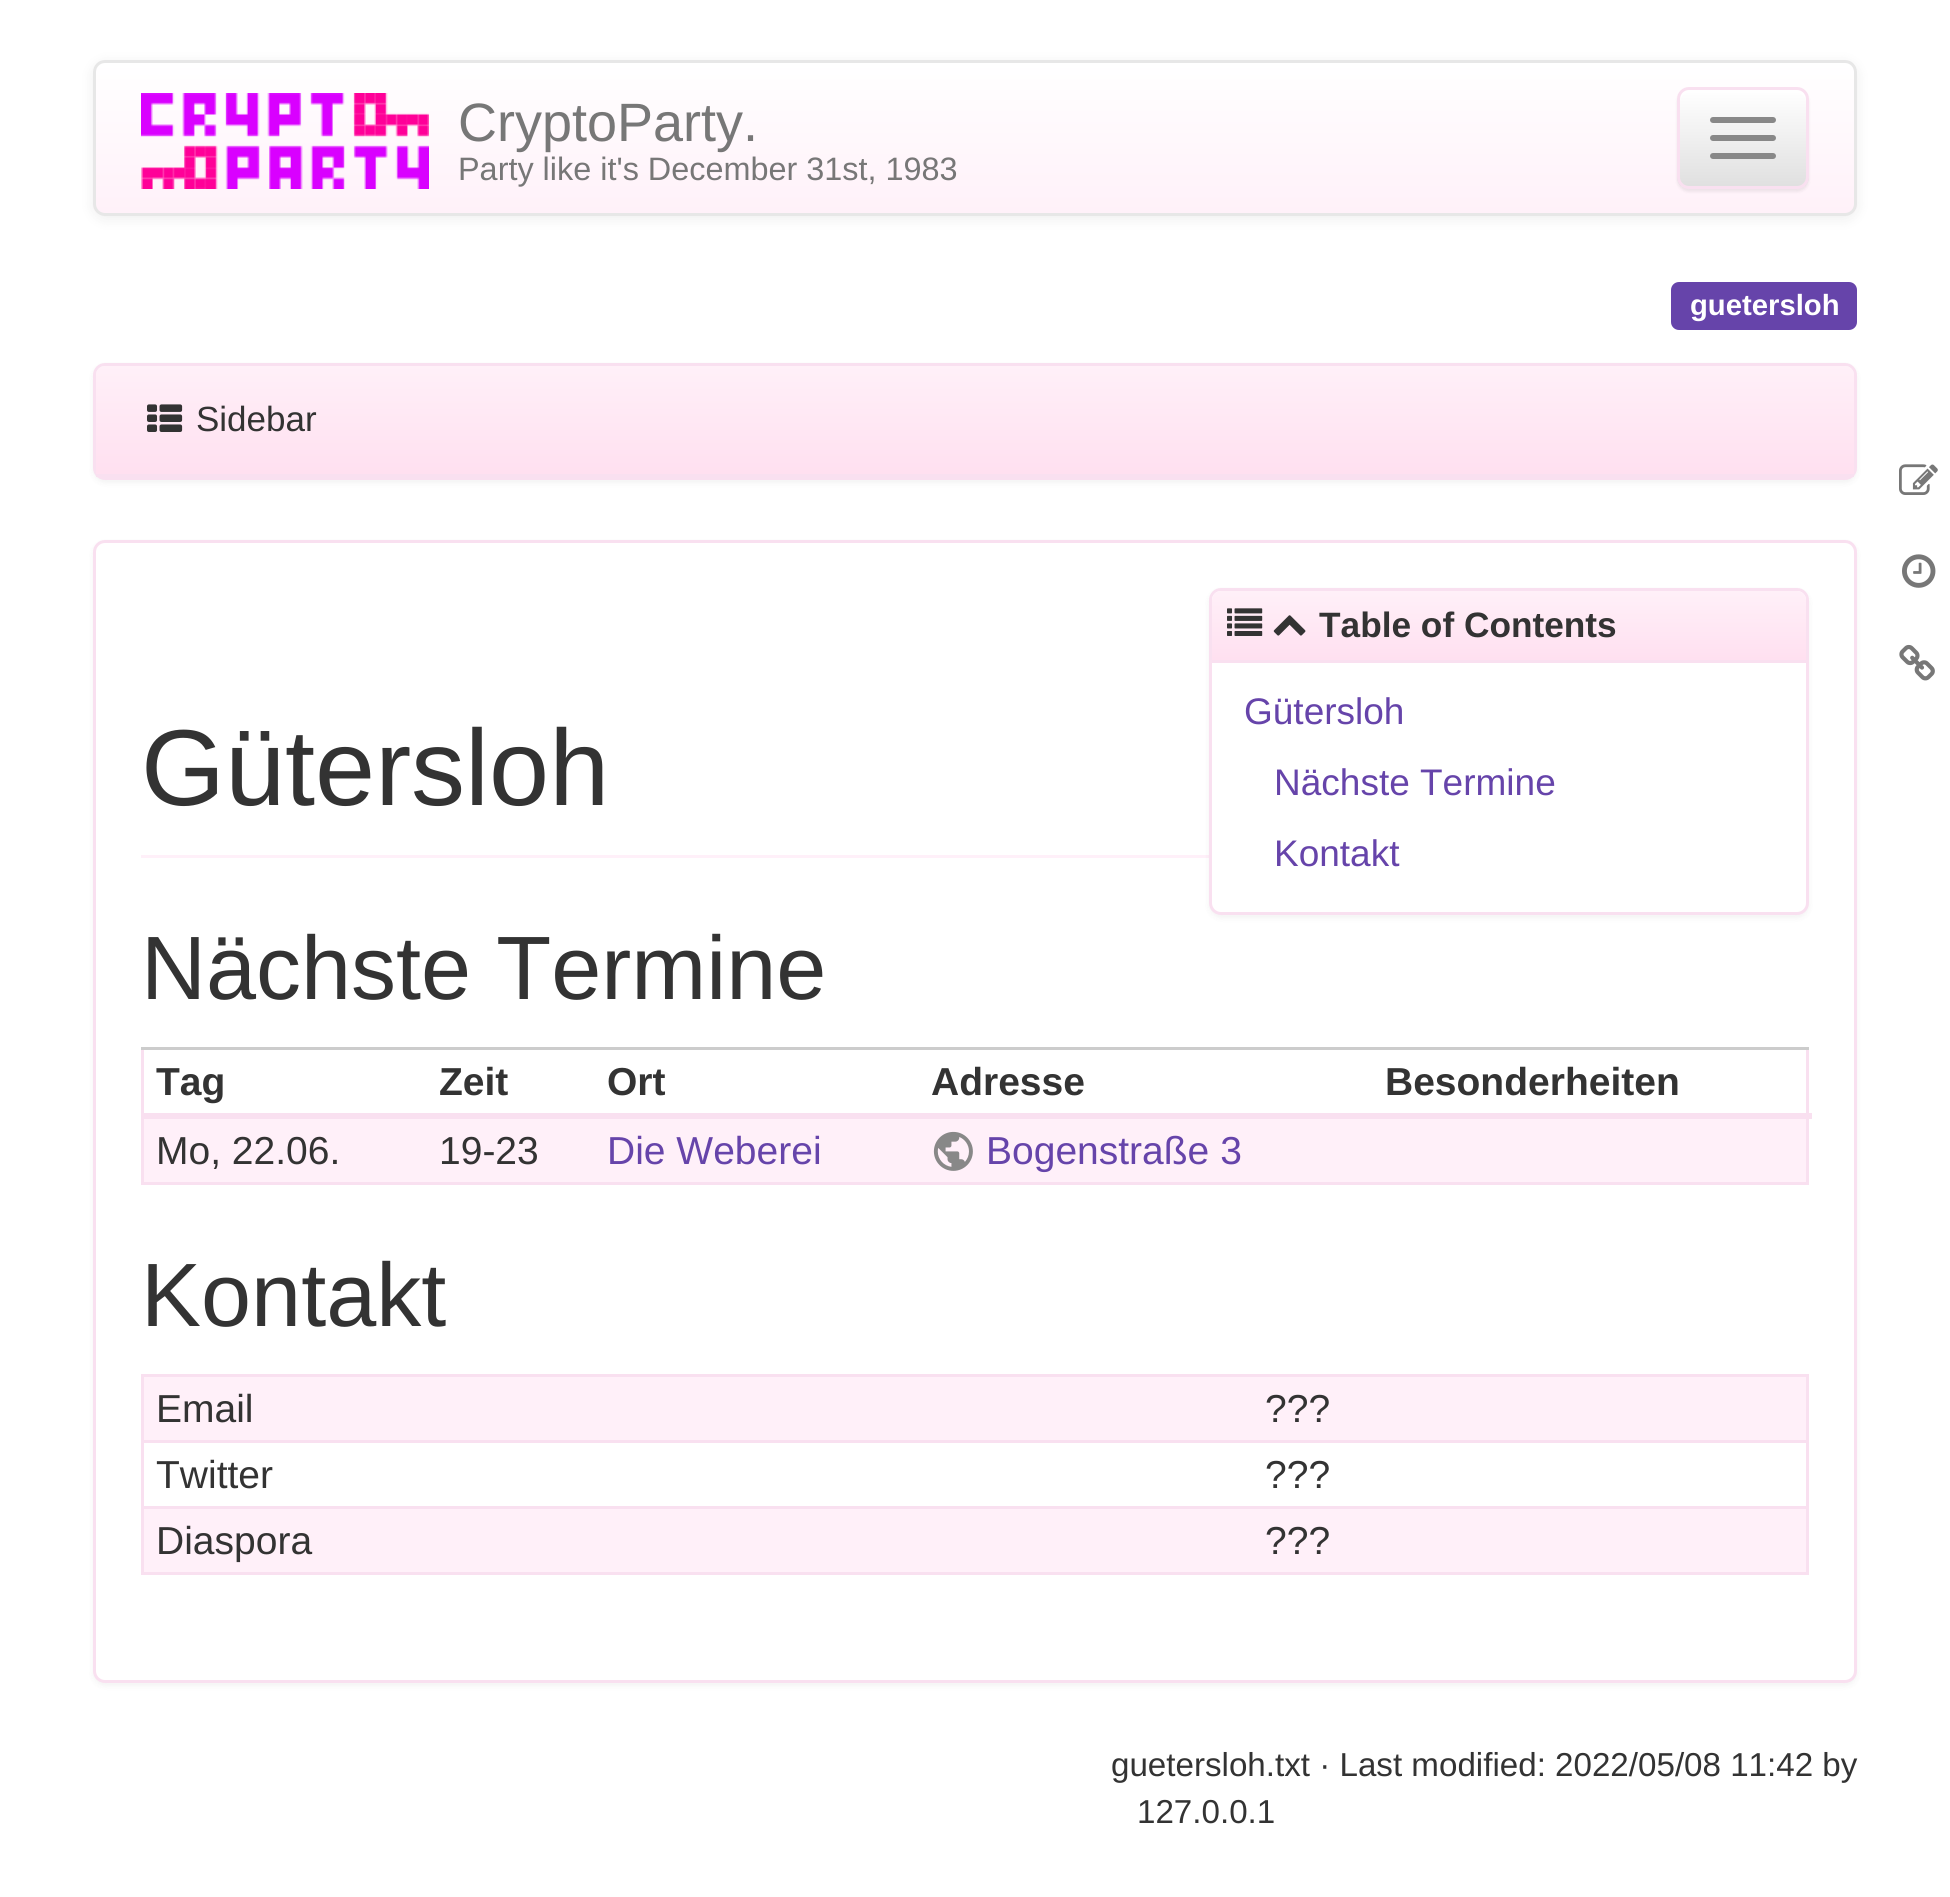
import math
import cairo

surface = cairo.ImageSurface(cairo.FORMAT_RGB24, 1950, 1897)
ctx = cairo.Context(surface)
options = cairo.FontOptions()
options.set_hint_metrics(cairo.HINT_METRICS_OFF)
options.set_hint_style(cairo.HINT_STYLE_NONE)
ctx.set_font_options(options)
ctx.set_miter_limit(4)


def round_rect(x, y, w, h, r):
    ctx.new_sub_path()
    for i, (u, v) in enumerate([(x + w - r, y + h - r), (x + r, y + h - r), (x + r, y + r), (x + w - r, y + r)]):
        ctx.arc(u, v, r, i * math.pi / 2, (i + 1) * math.pi / 2)
    ctx.close_path()


def shadow(x, y, w, h, r, blur, alpha):
    ctx.push_group_with_content(cairo.CONTENT_ALPHA)
    ctx.set_operator(cairo.OPERATOR_SOURCE)
    for i in range(15, -16, -2):
        e = blur * i / 6
        if min(w, h) + 2 * e > 0:
            ctx.set_source_rgba(0, 0, 0, alpha * math.erfc((i - 1) / 8.5) / 2)
            round_rect(x - e, y - e, w + 2 * e, h + 2 * e, max(0, min(r + e + blur * .6, min(w, h) / 2 + e)))
            ctx.fill()
    ctx.mask(ctx.pop_group())


def picture(path, x, y, w, h):
    ctx.save()
    ctx.set_source_surface(cairo.ImageSurface.create_from_png(path), x, y)
    ctx.rectangle(x, y, w, h)
    ctx.fill()
    ctx.restore()


ctx.set_source_rgb(1, 1, 1)
ctx.paint()
ctx.set_source_rgb(0, 0, 0)
shadow(93, 63, 1764, 156, 12, 7.5, 0.07)
ctx.save()
round_rect(93, 60, 1764, 156, 12)
ctx.clip()
gradient = cairo.LinearGradient(975, 63, 975, 213)
gradient.add_color_stop_rgba(0, 1, 1, 1, 1)
gradient.add_color_stop_rgba(1, 1, 0.945, 0.976, 1)
ctx.set_source(gradient)
ctx.rectangle(93, 63, 1764, 150)
ctx.fill()
ctx.restore()
round_rect(94.5, 61.5, 1761, 153, 10.5)
ctx.set_source_rgb(0.906, 0.906, 0.906)
ctx.set_line_width(3)
ctx.stroke()
picture("img1.png", 141, 93, 288, 96)
ctx.select_font_face("Liberation Sans")
ctx.set_font_size(54)
ctx.set_source_rgb(0.467, 0.467, 0.467)
ctx.move_to(458, 141)
ctx.show_text("CryptoParty.")
ctx.set_font_size(32.4)
ctx.move_to(458, 180)
ctx.show_text("Party like it's December 31st, 1983")
ctx.set_source_rgb(0, 0, 0)
shadow(1677, 90, 132, 102, 12, 1.5, 0.07)
ctx.save()
round_rect(1677, 87, 132, 102, 12)
ctx.clip()
gradient = cairo.LinearGradient(1743, 90, 1743, 186)
gradient.add_color_stop_rgba(0, 1, 1, 1, 1)
gradient.add_color_stop_rgba(1, 0.878, 0.878, 0.878, 1)
ctx.set_source(gradient)
ctx.rectangle(1677, 90, 132, 96)
ctx.fill()
ctx.restore()
ctx.set_source_rgb(1, 1, 1)
ctx.new_path()
ctx.move_to(1689, 93)
ctx.line_to(1797, 93)
ctx.curve_to(1802, 93, 1806, 97, 1806, 102)
ctx.curve_to(1806, 86, 1792, 90, 1779, 90)
ctx.line_to(1707, 90)
ctx.curve_to(1694, 90, 1680, 86, 1680, 102)
ctx.curve_to(1680, 97, 1684, 93, 1689, 93)
ctx.close_path()
ctx.fill()
round_rect(1678.5, 88.5, 129, 99, 10.5)
ctx.set_source_rgb(0.973, 0.878, 0.941)
ctx.stroke()
ctx.set_source_rgb(0.533, 0.533, 0.533)
round_rect(1710, 117, 66, 6, 3)
ctx.fill()
round_rect(1710, 135, 66, 6, 3)
ctx.fill()
round_rect(1710, 153, 66, 6, 3)
ctx.fill()
ctx.set_source_rgb(0.4, 0.267, 0.667)
round_rect(1671, 282, 186, 48, 8)
ctx.fill()
ctx.select_font_face("Liberation Sans", cairo.FONT_SLANT_NORMAL, cairo.FONT_WEIGHT_BOLD)
ctx.set_font_size(29.25)
ctx.set_source_rgb(1, 1, 1)
ctx.move_to(1690, 315)
ctx.show_text("guetersloh")
ctx.set_source_rgb(0, 0, 0)
shadow(93, 366, 1764, 117, 12, 3, 0.05)
round_rect(94.5, 364.5, 1761, 114, 10.5)
ctx.set_source_rgb(0.973, 0.878, 0.941)
ctx.stroke()
gradient = cairo.LinearGradient(975, 366, 975, 474)
gradient.add_color_stop_rgba(0, 1, 0.941, 0.973, 1)
gradient.add_color_stop_rgba(1, 1, 0.878, 0.941, 1)
ctx.set_source(gradient)
ctx.new_path()
ctx.move_to(105, 366)
ctx.line_to(1845, 366)
ctx.curve_to(1850, 366, 1854, 370, 1854, 375)
ctx.line_to(1854, 474)
ctx.line_to(96, 474)
ctx.line_to(96, 375)
ctx.curve_to(96, 370, 100, 366, 105, 366)
ctx.close_path()
ctx.fill()
ctx.set_source_rgb(0.973, 0.878, 0.941)
ctx.rectangle(96, 474, 1758, 3)
ctx.fill()
picture("img2.png", 147, 404, 36, 28)
ctx.select_font_face("Liberation Sans")
ctx.set_font_size(35)
ctx.set_source_rgb(0.2, 0.2, 0.2)
ctx.move_to(196, 431)
ctx.show_text("Sidebar")
picture("img3.png", 1899, 464, 39, 31)
picture("img4.png", 1902, 554, 34, 34)
picture("img5.png", 1899, 644, 36, 37)
ctx.set_source_rgb(0, 0, 0)
shadow(93, 543, 1764, 1143, 12, 3, 0.05)
ctx.set_source_rgb(1, 1, 1)
round_rect(94.5, 541.5, 1761, 1140, 10.5)
ctx.fill_preserve()
ctx.set_source_rgb(0.973, 0.878, 0.941)
ctx.stroke()
ctx.set_source_rgb(1, 0.941, 0.976)
ctx.rectangle(141, 855, 1068, 3)
ctx.fill()
ctx.set_font_size(108)
ctx.set_source_rgb(0.2, 0.2, 0.2)
ctx.move_to(141, 805)
ctx.show_text("Gütersloh")
ctx.set_source_rgb(0, 0, 0)
shadow(1209, 591, 600, 327, 12, 3, 0.05)
ctx.set_source_rgb(1, 1, 1)
round_rect(1210.5, 589.5, 597, 324, 10.5)
ctx.fill_preserve()
ctx.set_source_rgb(0.973, 0.878, 0.941)
ctx.stroke()
gradient = cairo.LinearGradient(1509, 591, 1509, 660)
gradient.add_color_stop_rgba(0, 1, 0.941, 0.973, 1)
gradient.add_color_stop_rgba(1, 1, 0.878, 0.941, 1)
ctx.set_source(gradient)
ctx.new_path()
ctx.move_to(1221, 591)
ctx.line_to(1797, 591)
ctx.curve_to(1802, 591, 1806, 595, 1806, 600)
ctx.line_to(1806, 660)
ctx.line_to(1212, 660)
ctx.line_to(1212, 600)
ctx.curve_to(1212, 595, 1216, 591, 1221, 591)
ctx.close_path()
ctx.fill()
ctx.set_source_rgb(0.973, 0.878, 0.941)
ctx.rectangle(1212, 660, 594, 3)
ctx.fill()
picture("img6.png", 1227, 608, 36, 28)
picture("img7.png", 1273, 615, 33, 21)
ctx.select_font_face("Liberation Sans", cairo.FONT_SLANT_NORMAL, cairo.FONT_WEIGHT_BOLD)
ctx.set_font_size(35.25)
ctx.set_source_rgb(0.2, 0.2, 0.2)
ctx.move_to(1319, 637)
ctx.show_text("Table of Contents")
ctx.select_font_face("Liberation Sans")
ctx.set_font_size(37)
ctx.set_source_rgb(0.4, 0.267, 0.667)
ctx.move_to(1244, 724)
ctx.show_text("Gütersloh")
ctx.move_to(1274, 795)
ctx.show_text("Nächste Termine")
ctx.move_to(1274, 866)
ctx.show_text("Kontakt")
ctx.set_font_size(90)
ctx.set_source_rgb(0.2, 0.2, 0.2)
ctx.move_to(141, 999)
ctx.show_text("Nächste Termine")
ctx.set_source_rgb(0.973, 0.878, 0.941)
ctx.rectangle(1806, 1047, 3, 138)
ctx.fill()
ctx.rectangle(141, 1182, 1668, 3)
ctx.fill()
ctx.rectangle(141, 1047, 3, 138)
ctx.fill()
ctx.select_font_face("Liberation Sans", cairo.FONT_SLANT_NORMAL, cairo.FONT_WEIGHT_BOLD)
ctx.set_font_size(39)
ctx.set_source_rgb(0.2, 0.2, 0.2)
ctx.move_to(156, 1095)
ctx.show_text("Tag")
ctx.move_to(439, 1095)
ctx.show_text("Zeit")
ctx.move_to(607, 1095)
ctx.show_text("Ort")
ctx.move_to(931, 1095)
ctx.show_text("Adresse")
ctx.set_source_rgb(0.8, 0.8, 0.8)
ctx.rectangle(141, 1047, 1668, 3)
ctx.fill()
ctx.set_source_rgb(0.973, 0.878, 0.941)
ctx.rectangle(141, 1113, 1671, 6)
ctx.fill()
ctx.set_source_rgb(0.2, 0.2, 0.2)
ctx.move_to(1385, 1095)
ctx.show_text("Besonderheiten")
ctx.set_source_rgb(1, 0.941, 0.973)
ctx.rectangle(144, 1119, 1662, 63)
ctx.fill()
ctx.select_font_face("Liberation Sans")
ctx.set_source_rgb(0.2, 0.2, 0.2)
ctx.move_to(156, 1164)
ctx.show_text("Mo, 22.06.")
ctx.move_to(439, 1164)
ctx.show_text("19-23")
ctx.set_source_rgb(0.4, 0.267, 0.667)
ctx.move_to(607, 1164)
ctx.show_text("Die Weberei")
picture("img8.png", 933, 1131, 40, 40)
ctx.move_to(986, 1164)
ctx.show_text("Bogenstraße 3")
ctx.set_font_size(90)
ctx.set_source_rgb(0.2, 0.2, 0.2)
ctx.move_to(141, 1326)
ctx.show_text("Kontakt")
ctx.set_source_rgb(0.973, 0.878, 0.941)
ctx.rectangle(141, 1374, 1668, 3)
ctx.fill()
ctx.rectangle(1806, 1374, 3, 201)
ctx.fill()
ctx.rectangle(141, 1572, 1668, 3)
ctx.fill()
ctx.rectangle(141, 1374, 3, 201)
ctx.fill()
ctx.set_source_rgb(1, 0.941, 0.973)
ctx.rectangle(144, 1377, 1662, 63)
ctx.fill()
ctx.set_font_size(39)
ctx.set_source_rgb(0.2, 0.2, 0.2)
ctx.move_to(156, 1422)
ctx.show_text("Email")
ctx.move_to(1265, 1422)
ctx.show_text("???")
ctx.move_to(156, 1488)
ctx.show_text("Twitter")
ctx.set_source_rgb(0.973, 0.878, 0.941)
ctx.rectangle(141, 1440, 1668, 3)
ctx.fill()
ctx.set_source_rgb(0.2, 0.2, 0.2)
ctx.move_to(1265, 1488)
ctx.show_text("???")
ctx.set_source_rgb(1, 0.941, 0.973)
ctx.rectangle(144, 1509, 1662, 63)
ctx.fill()
ctx.set_source_rgb(0.2, 0.2, 0.2)
ctx.move_to(156, 1554)
ctx.show_text("Diaspora")
ctx.set_source_rgb(0.973, 0.878, 0.941)
ctx.rectangle(141, 1506, 1668, 3)
ctx.fill()
ctx.set_source_rgb(0.2, 0.2, 0.2)
ctx.move_to(1265, 1554)
ctx.show_text("???")
ctx.set_font_size(33.15)
ctx.move_to(1111, 1776)
ctx.show_text("guetersloh.txt · Last modified: 2022/05/08 11:42 by")
ctx.move_to(1137, 1823)
ctx.show_text("127.0.0.1")
surface.write_to_png("page.png")
